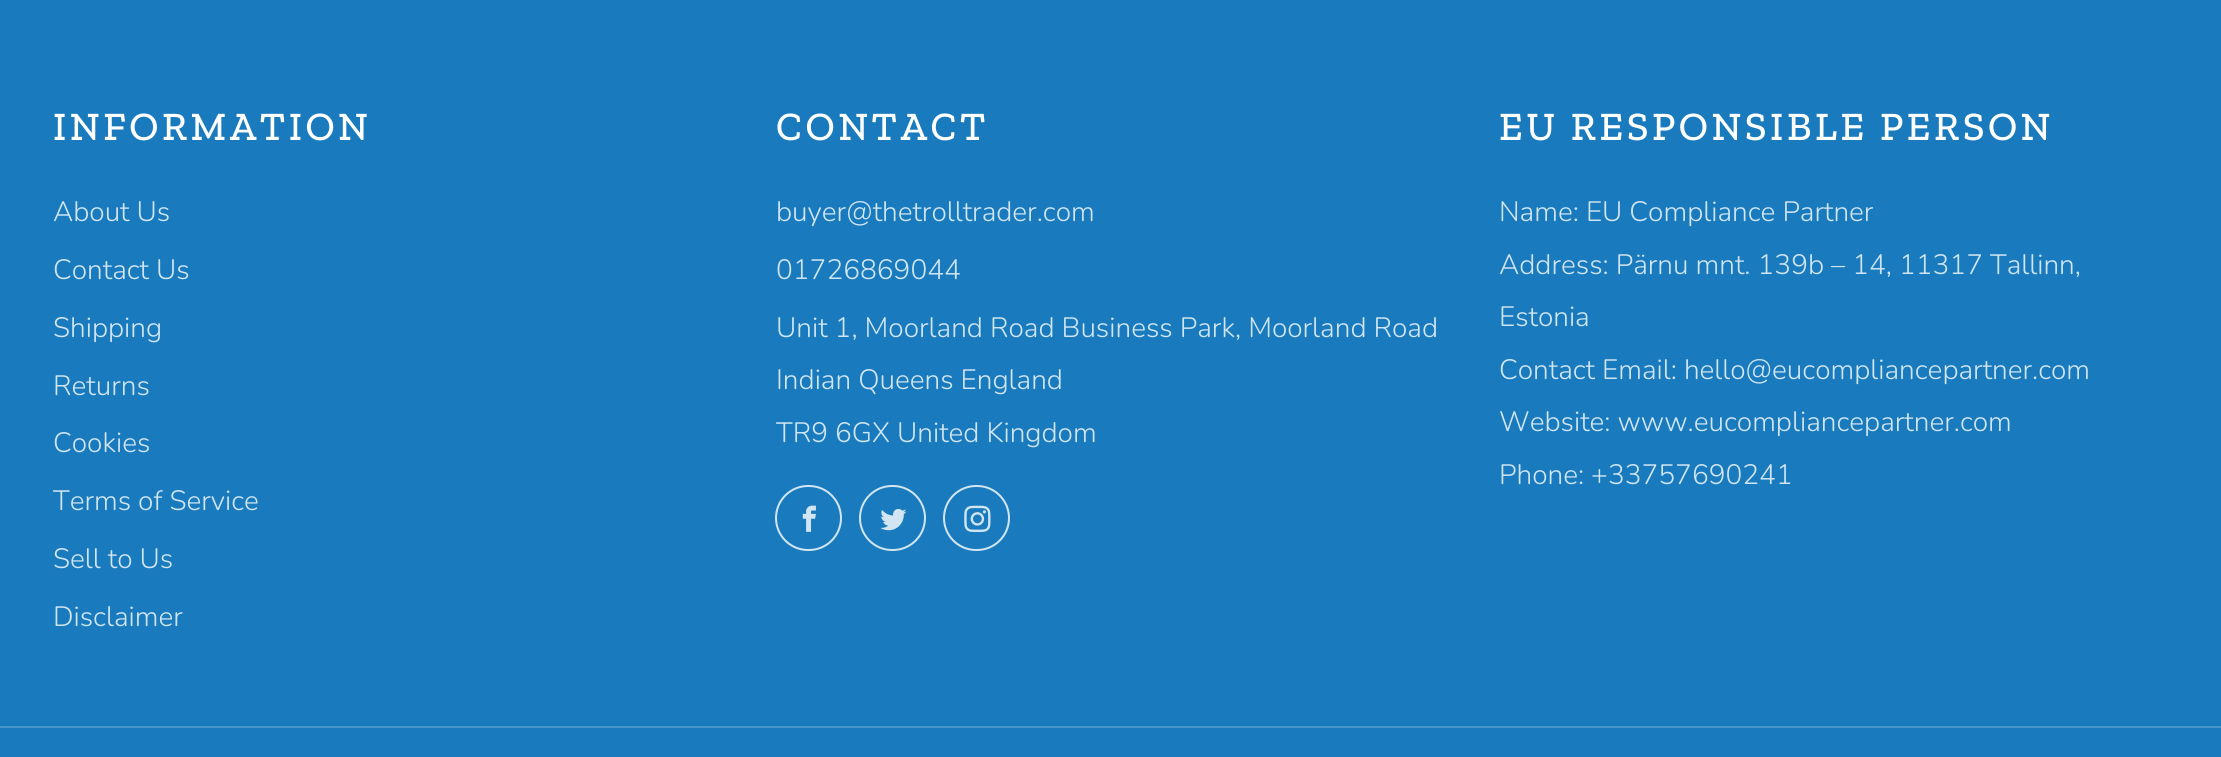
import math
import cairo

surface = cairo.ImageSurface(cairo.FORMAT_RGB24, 2221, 757)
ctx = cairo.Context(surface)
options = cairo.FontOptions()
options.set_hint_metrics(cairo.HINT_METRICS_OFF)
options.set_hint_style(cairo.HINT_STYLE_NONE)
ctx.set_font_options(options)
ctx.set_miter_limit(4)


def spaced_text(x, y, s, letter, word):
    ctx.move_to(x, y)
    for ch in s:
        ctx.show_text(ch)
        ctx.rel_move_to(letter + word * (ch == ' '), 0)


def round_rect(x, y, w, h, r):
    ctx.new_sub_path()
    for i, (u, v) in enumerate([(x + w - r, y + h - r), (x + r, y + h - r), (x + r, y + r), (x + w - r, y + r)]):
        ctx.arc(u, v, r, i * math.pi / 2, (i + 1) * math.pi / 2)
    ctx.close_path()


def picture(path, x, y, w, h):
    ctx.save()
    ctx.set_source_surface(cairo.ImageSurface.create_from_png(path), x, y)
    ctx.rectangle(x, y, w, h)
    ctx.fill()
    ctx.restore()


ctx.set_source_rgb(0.098, 0.482, 0.741)
ctx.paint()
ctx.select_font_face("Zilla Slab Medium")
ctx.set_font_size(40.25)
ctx.set_source_rgb(1, 1, 1)
spaced_text(53, 140, "INFORMATION", 3.5, 0)
ctx.select_font_face("Nunito Light")
ctx.set_font_size(28)
ctx.set_source_rgb(0.82, 0.898, 0.949)
ctx.move_to(53, 221)
ctx.show_text("About Us")
ctx.move_to(53, 279)
ctx.show_text("Contact Us")
ctx.move_to(53, 337)
ctx.show_text("Shipping")
ctx.move_to(53, 395)
ctx.show_text("Returns")
ctx.move_to(53, 452)
ctx.show_text("Cookies")
ctx.move_to(53, 510)
ctx.show_text("Terms of Service")
ctx.move_to(53, 568)
ctx.show_text("Sell to Us")
ctx.move_to(53, 626)
ctx.show_text("Disclaimer")
ctx.select_font_face("Zilla Slab Medium")
ctx.set_font_size(40.25)
ctx.set_source_rgb(1, 1, 1)
spaced_text(776, 140, "CONTACT", 3.5, 0)
ctx.select_font_face("Nunito Light")
ctx.set_font_size(28)
ctx.set_source_rgb(0.82, 0.898, 0.949)
ctx.move_to(776, 221)
ctx.show_text("buyer@thetrolltrader.com")
ctx.move_to(776, 279)
ctx.show_text("01726869044")
ctx.move_to(776, 337)
ctx.show_text("Unit 1, Moorland Road Business Park, Moorland Road")
ctx.move_to(776, 389)
ctx.show_text("Indian Queens England")
ctx.move_to(776, 442)
ctx.show_text("TR9 6GX United Kingdom")
round_rect(776, 486, 65, 64, 32)
ctx.stroke()
picture("img1.png", 802, 505, 14, 27)
round_rect(860, 486, 65, 64, 32)
ctx.stroke()
picture("img2.png", 880, 508, 27, 23)
round_rect(944, 486, 65, 64, 32)
ctx.stroke()
picture("img3.png", 964, 505, 27, 27)
ctx.select_font_face("Zilla Slab Medium")
ctx.set_font_size(40.25)
ctx.set_source_rgb(1, 1, 1)
spaced_text(1499, 140, "EU RESPONSIBLE PERSON", 3.5, 0)
ctx.select_font_face("Nunito Light")
ctx.set_font_size(28)
ctx.set_source_rgb(0.82, 0.898, 0.949)
ctx.move_to(1499, 221)
ctx.show_text("Name: EU Compliance Partner")
ctx.move_to(1499, 274)
ctx.show_text("Address: Pärnu mnt. 139b – 14, 11317 Tallinn,")
ctx.move_to(1499, 326)
ctx.show_text("Estonia")
ctx.move_to(1499, 379)
ctx.show_text("Contact Email: hello@eucompliancepartner.com")
ctx.move_to(1499, 431)
ctx.show_text("Website: www.eucompliancepartner.com")
ctx.move_to(1499, 484)
ctx.show_text("Phone: +33757690241")
ctx.set_source_rgb(0.278, 0.584, 0.792)
ctx.rectangle(0, 726, 2221, 2)
ctx.fill()
surface.write_to_png("page.png")
